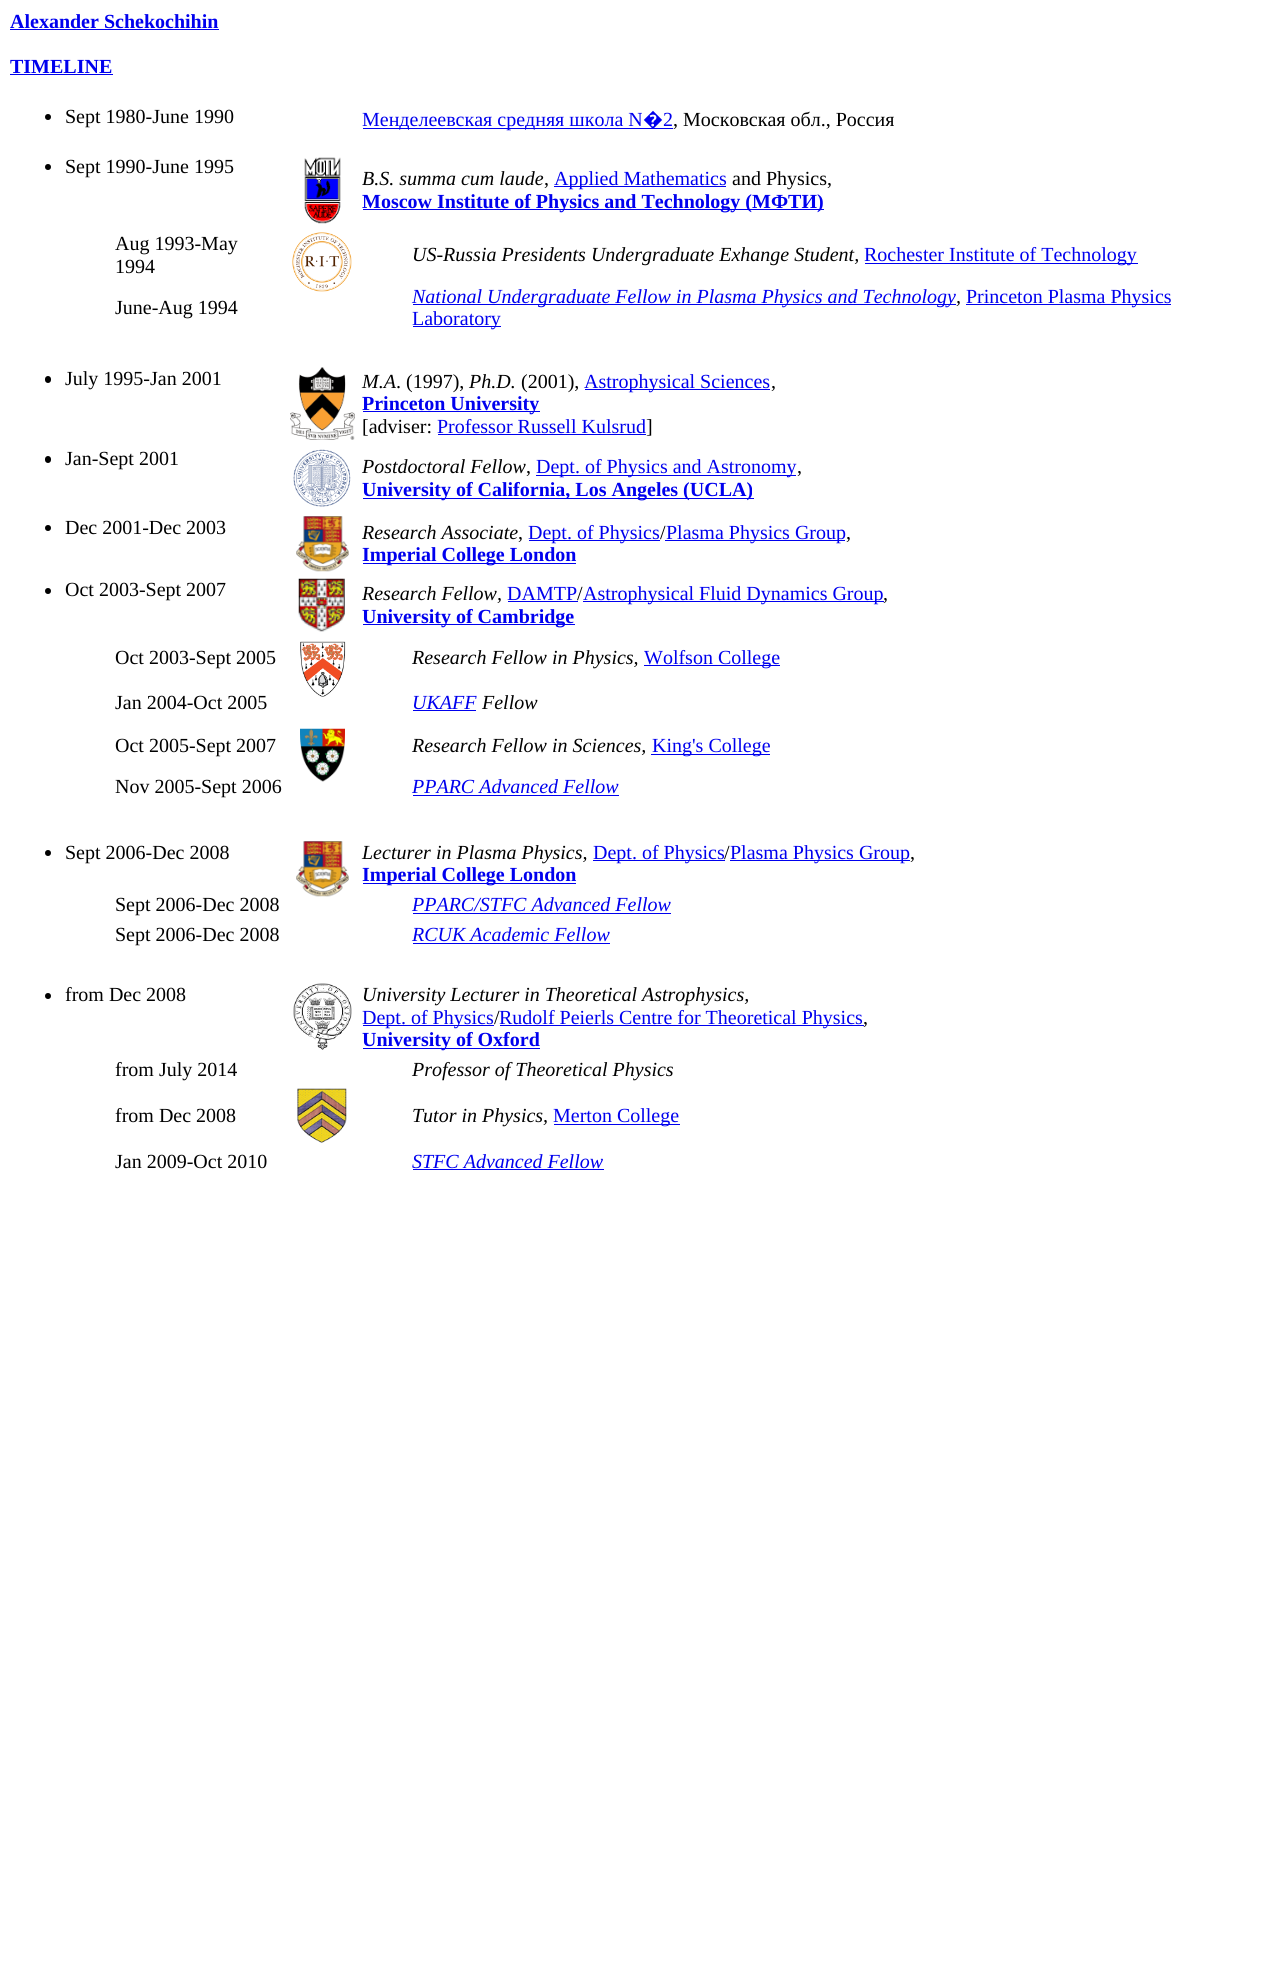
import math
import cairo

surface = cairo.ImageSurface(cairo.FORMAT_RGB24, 1277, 1962)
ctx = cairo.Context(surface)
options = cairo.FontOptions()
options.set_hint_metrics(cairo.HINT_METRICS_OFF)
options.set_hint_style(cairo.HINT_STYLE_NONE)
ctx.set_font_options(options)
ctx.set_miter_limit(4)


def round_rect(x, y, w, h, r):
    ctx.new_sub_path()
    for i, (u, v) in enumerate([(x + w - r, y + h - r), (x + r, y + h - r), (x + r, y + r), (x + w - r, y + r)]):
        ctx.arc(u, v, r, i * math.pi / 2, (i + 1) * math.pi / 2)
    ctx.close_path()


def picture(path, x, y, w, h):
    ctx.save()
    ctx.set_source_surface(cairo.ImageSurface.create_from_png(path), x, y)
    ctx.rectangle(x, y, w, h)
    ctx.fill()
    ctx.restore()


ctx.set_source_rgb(1, 1, 1)
ctx.paint()
ctx.select_font_face("Liberation Serif", cairo.FONT_SLANT_NORMAL, cairo.FONT_WEIGHT_BOLD)
ctx.set_font_size(20)
ctx.set_source_rgb(0, 0, 0.933)
ctx.move_to(10, 28)
ctx.show_text("Alexander Schekochihin")
ctx.rectangle(10, 29, 209, 1)
ctx.fill()
ctx.move_to(10, 73)
ctx.show_text("TIMELINE")
ctx.rectangle(10, 74, 103, 1)
ctx.fill()
ctx.set_source_rgb(0, 0, 0)
ctx.arc(48, 117, 3, 0, 2 * math.pi)
ctx.fill()
ctx.select_font_face("Liberation Serif")
ctx.move_to(65, 123)
ctx.show_text("Sept 1980-June 1990")
ctx.set_source_rgb(0, 0, 0.933)
ctx.rectangle(363, 128, 310, 1)
ctx.fill()
ctx.move_to(362, 126)
ctx.show_text("Менделеевская средняя школа N")
ctx.select_font_face("Noto Sans")
ctx.move_to(643, 126)
ctx.show_text("�")
ctx.select_font_face("Liberation Serif")
ctx.move_to(663, 126)
ctx.show_text("2")
ctx.set_source_rgb(0, 0, 0)
ctx.move_to(673, 126)
ctx.show_text(", Московская обл., Россия")
ctx.new_path()
ctx.arc(48, 167, 3, 0, 2 * math.pi)
ctx.fill()
ctx.move_to(65, 173)
ctx.show_text("Sept 1990-June 1995")
picture("img1.png", 304, 157, 37, 67)
ctx.select_font_face("Liberation Serif", cairo.FONT_SLANT_ITALIC)
ctx.move_to(362, 185)
ctx.show_text("B.S. summa cum laude")
ctx.select_font_face("Liberation Serif")
ctx.move_to(544, 185)
ctx.show_text(",")
ctx.set_source_rgb(0, 0, 0.933)
ctx.rectangle(554, 186, 172, 1)
ctx.fill()
ctx.move_to(554, 185)
ctx.show_text("Applied Mathematics")
ctx.set_source_rgb(0, 0, 0)
ctx.move_to(732, 185)
ctx.show_text("and Physics,")
ctx.set_source_rgb(0, 0, 0.933)
ctx.rectangle(363, 209, 461, 1)
ctx.fill()
ctx.select_font_face("Liberation Serif", cairo.FONT_SLANT_NORMAL, cairo.FONT_WEIGHT_BOLD)
ctx.move_to(362, 208)
ctx.show_text("Moscow Institute of Physics and Technology (МФТИ)")
ctx.select_font_face("Liberation Serif")
ctx.set_source_rgb(0, 0, 0)
ctx.move_to(115, 250)
ctx.show_text("Aug 1993-May")
ctx.move_to(115, 273)
ctx.show_text("1994")
picture("img2.png", 292, 232, 60, 60)
ctx.select_font_face("Liberation Serif", cairo.FONT_SLANT_ITALIC)
ctx.move_to(412, 261)
ctx.show_text("US-Russia Presidents Undergraduate Exhange Student,")
ctx.set_source_rgb(0, 0, 0.933)
ctx.rectangle(865, 263, 273, 1)
ctx.fill()
ctx.select_font_face("Liberation Serif")
ctx.move_to(864, 261)
ctx.show_text("Rochester Institute of Technology")
ctx.set_source_rgb(0, 0, 0)
ctx.move_to(115, 314)
ctx.show_text("June-Aug 1994")
ctx.set_source_rgb(0, 0, 0.933)
ctx.rectangle(413, 304, 543, 1)
ctx.fill()
ctx.select_font_face("Liberation Serif", cairo.FONT_SLANT_ITALIC)
ctx.move_to(412, 303)
ctx.show_text("National Undergraduate Fellow in Plasma Physics and Technology")
ctx.set_source_rgb(0, 0, 0)
ctx.move_to(956, 303)
ctx.show_text(",")
ctx.set_source_rgb(0, 0, 0.933)
ctx.rectangle(966, 304, 205, 1)
ctx.fill()
ctx.select_font_face("Liberation Serif")
ctx.move_to(966, 303)
ctx.show_text("Princeton Plasma Physics")
ctx.rectangle(413, 326, 88, 1)
ctx.fill()
ctx.move_to(412, 325)
ctx.show_text("Laboratory")
ctx.set_source_rgb(0, 0, 0)
round_rect(45, 376, 6, 7, 3)
ctx.fill()
ctx.move_to(65, 385)
ctx.show_text("July 1995-Jan 2001")
picture("img3.png", 290, 367, 65, 73)
ctx.select_font_face("Liberation Serif", cairo.FONT_SLANT_ITALIC)
ctx.move_to(362, 388)
ctx.show_text("M.A")
ctx.select_font_face("Liberation Serif")
ctx.move_to(396, 388)
ctx.show_text(". (1997),")
ctx.select_font_face("Liberation Serif", cairo.FONT_SLANT_ITALIC)
ctx.move_to(469, 388)
ctx.show_text("Ph.D.")
ctx.select_font_face("Liberation Serif")
ctx.move_to(521, 388)
ctx.show_text("(2001),")
ctx.set_source_rgb(0, 0, 0.933)
ctx.rectangle(585, 389, 185, 1)
ctx.fill()
ctx.move_to(584, 388)
ctx.show_text("Astrophysical Sciences")
ctx.set_source_rgb(0, 0, 0)
ctx.move_to(771, 388)
ctx.show_text(",")
ctx.set_source_rgb(0, 0, 0.933)
ctx.rectangle(363, 411, 177, 1)
ctx.fill()
ctx.select_font_face("Liberation Serif", cairo.FONT_SLANT_NORMAL, cairo.FONT_WEIGHT_BOLD)
ctx.move_to(362, 410)
ctx.show_text("Princeton University")
ctx.select_font_face("Liberation Serif")
ctx.set_source_rgb(0, 0, 0)
ctx.move_to(362, 433)
ctx.show_text("[adviser:")
ctx.set_source_rgb(0, 0, 0.933)
ctx.move_to(437, 433)
ctx.show_text("Professor Russell Kulsrud")
ctx.rectangle(438, 434, 208, 1)
ctx.fill()
ctx.set_source_rgb(0, 0, 0)
ctx.move_to(646, 433)
ctx.show_text("]")
round_rect(45, 456, 6, 7, 3)
ctx.fill()
ctx.move_to(65, 465)
ctx.show_text("Jan-Sept 2001")
picture("img4.png", 293, 449, 58, 58)
ctx.select_font_face("Liberation Serif", cairo.FONT_SLANT_ITALIC)
ctx.move_to(362, 473)
ctx.show_text("Postdoctoral Fellow")
ctx.select_font_face("Liberation Serif")
ctx.move_to(526, 473)
ctx.show_text(",")
ctx.set_source_rgb(0, 0, 0.933)
ctx.rectangle(536, 475, 260, 1)
ctx.fill()
ctx.move_to(536, 473)
ctx.show_text("Dept. of Physics and Astronomy")
ctx.set_source_rgb(0, 0, 0)
ctx.move_to(797, 473)
ctx.show_text(",")
ctx.set_source_rgb(0, 0, 0.933)
ctx.rectangle(363, 498, 391, 1)
ctx.fill()
ctx.select_font_face("Liberation Serif", cairo.FONT_SLANT_NORMAL, cairo.FONT_WEIGHT_BOLD)
ctx.move_to(362, 496)
ctx.show_text("University of California, Los Angeles (UCLA)")
ctx.set_source_rgb(0, 0, 0)
ctx.new_path()
ctx.arc(48, 528, 3, 0, 2 * math.pi)
ctx.fill()
ctx.select_font_face("Liberation Serif")
ctx.move_to(65, 534)
ctx.show_text("Dec 2001-Dec 2003")
picture("img5.png", 296, 516, 53, 56)
ctx.select_font_face("Liberation Serif", cairo.FONT_SLANT_ITALIC)
ctx.move_to(362, 539)
ctx.show_text("Research Associate")
ctx.select_font_face("Liberation Serif")
ctx.move_to(518, 539)
ctx.show_text(",")
ctx.set_source_rgb(0, 0, 0.933)
ctx.rectangle(529, 540, 131, 1)
ctx.fill()
ctx.move_to(528, 539)
ctx.show_text("Dept. of Physics")
ctx.set_source_rgb(0, 0, 0)
ctx.move_to(660, 539)
ctx.show_text("/")
ctx.set_source_rgb(0, 0, 0.933)
ctx.rectangle(665, 540, 180, 1)
ctx.fill()
ctx.move_to(666, 539)
ctx.show_text("Plasma Physics Group")
ctx.set_source_rgb(0, 0, 0)
ctx.move_to(846, 539)
ctx.show_text(",")
ctx.set_source_rgb(0, 0, 0.933)
ctx.rectangle(363, 563, 213, 1)
ctx.fill()
ctx.select_font_face("Liberation Serif", cairo.FONT_SLANT_NORMAL, cairo.FONT_WEIGHT_BOLD)
ctx.move_to(362, 561)
ctx.show_text("Imperial College London")
ctx.set_source_rgb(0, 0, 0)
ctx.new_path()
ctx.arc(48, 591, 3, 0, 2 * math.pi)
ctx.fill()
ctx.select_font_face("Liberation Serif")
ctx.move_to(65, 596)
ctx.show_text("Oct 2003-Sept 2007")
picture("img6.png", 298, 578, 47, 54)
ctx.select_font_face("Liberation Serif", cairo.FONT_SLANT_ITALIC)
ctx.move_to(362, 600)
ctx.show_text("Research Fellow,")
ctx.select_font_face("Liberation Serif")
ctx.set_source_rgb(0, 0, 0.933)
ctx.move_to(507, 600)
ctx.show_text("DAMTP")
ctx.rectangle(508, 601, 70, 1)
ctx.fill()
ctx.set_source_rgb(0, 0, 0)
ctx.move_to(577, 600)
ctx.show_text("/")
ctx.set_source_rgb(0, 0, 0.933)
ctx.rectangle(583, 601, 301, 1)
ctx.fill()
ctx.move_to(583, 600)
ctx.show_text("Astrophysical Fluid Dynamics Group")
ctx.set_source_rgb(0, 0, 0)
ctx.move_to(883, 600)
ctx.show_text(",")
ctx.set_source_rgb(0, 0, 0.933)
ctx.rectangle(363, 624, 212, 1)
ctx.fill()
ctx.select_font_face("Liberation Serif", cairo.FONT_SLANT_NORMAL, cairo.FONT_WEIGHT_BOLD)
ctx.move_to(362, 623)
ctx.show_text("University of Cambridge")
ctx.select_font_face("Liberation Serif")
ctx.set_source_rgb(0, 0, 0)
ctx.move_to(115, 664)
ctx.show_text("Oct 2003-Sept 2005")
picture("img7.png", 300, 641, 46, 56)
ctx.select_font_face("Liberation Serif", cairo.FONT_SLANT_ITALIC)
ctx.move_to(412, 664)
ctx.show_text("Research Fellow in Physics,")
ctx.set_source_rgb(0, 0, 0.933)
ctx.rectangle(644, 665, 136, 1)
ctx.fill()
ctx.select_font_face("Liberation Serif")
ctx.move_to(644, 664)
ctx.show_text("Wolfson College")
ctx.set_source_rgb(0, 0, 0)
ctx.move_to(115, 709)
ctx.show_text("Jan 2004-Oct 2005")
ctx.select_font_face("Liberation Serif", cairo.FONT_SLANT_ITALIC)
ctx.set_source_rgb(0, 0, 0.933)
ctx.move_to(412, 709)
ctx.show_text("UKAFF")
ctx.rectangle(413, 710, 63, 1)
ctx.fill()
ctx.set_source_rgb(0, 0, 0)
ctx.move_to(482, 709)
ctx.show_text("Fellow")
ctx.select_font_face("Liberation Serif")
ctx.move_to(115, 752)
ctx.show_text("Oct 2005-Sept 2007")
picture("img8.png", 300, 728, 45, 54)
ctx.select_font_face("Liberation Serif", cairo.FONT_SLANT_ITALIC)
ctx.move_to(412, 752)
ctx.show_text("Research Fellow in Sciences,")
ctx.set_source_rgb(0, 0, 0.933)
ctx.rectangle(651, 754, 119, 1)
ctx.fill()
ctx.select_font_face("Liberation Serif")
ctx.move_to(652, 752)
ctx.show_text("King's College")
ctx.set_source_rgb(0, 0, 0)
ctx.move_to(115, 793)
ctx.show_text("Nov 2005-Sept 2006")
ctx.select_font_face("Liberation Serif", cairo.FONT_SLANT_ITALIC)
ctx.set_source_rgb(0, 0, 0.933)
ctx.move_to(412, 793)
ctx.show_text("PPARC Advanced Fellow")
ctx.rectangle(413, 795, 206, 1)
ctx.fill()
ctx.set_source_rgb(0, 0, 0)
ctx.arc(48, 853, 3, 0, 2 * math.pi)
ctx.fill()
ctx.select_font_face("Liberation Serif")
ctx.move_to(65, 859)
ctx.show_text("Sept 2006-Dec 2008")
picture("img5.png", 296, 841, 53, 56)
ctx.select_font_face("Liberation Serif", cairo.FONT_SLANT_ITALIC)
ctx.move_to(362, 859)
ctx.show_text("Lecturer in Plasma Physics,")
ctx.set_source_rgb(0, 0, 0.933)
ctx.rectangle(593, 860, 132, 1)
ctx.fill()
ctx.select_font_face("Liberation Serif")
ctx.move_to(593, 859)
ctx.show_text("Dept. of Physics")
ctx.set_source_rgb(0, 0, 0)
ctx.move_to(724, 859)
ctx.show_text("/")
ctx.set_source_rgb(0, 0, 0.933)
ctx.rectangle(730, 860, 180, 1)
ctx.fill()
ctx.move_to(730, 859)
ctx.show_text("Plasma Physics Group")
ctx.set_source_rgb(0, 0, 0)
ctx.move_to(910, 859)
ctx.show_text(",")
ctx.set_source_rgb(0, 0, 0.933)
ctx.rectangle(363, 883, 213, 1)
ctx.fill()
ctx.select_font_face("Liberation Serif", cairo.FONT_SLANT_NORMAL, cairo.FONT_WEIGHT_BOLD)
ctx.move_to(362, 881)
ctx.show_text("Imperial College London")
ctx.select_font_face("Liberation Serif")
ctx.set_source_rgb(0, 0, 0)
ctx.move_to(115, 911)
ctx.show_text("Sept 2006-Dec 2008")
ctx.select_font_face("Liberation Serif", cairo.FONT_SLANT_ITALIC)
ctx.set_source_rgb(0, 0, 0.933)
ctx.move_to(412, 911)
ctx.show_text("PPARC/STFC Advanced Fellow")
ctx.rectangle(413, 913, 258, 1)
ctx.fill()
ctx.select_font_face("Liberation Serif")
ctx.set_source_rgb(0, 0, 0)
ctx.move_to(115, 941)
ctx.show_text("Sept 2006-Dec 2008")
ctx.select_font_face("Liberation Serif", cairo.FONT_SLANT_ITALIC)
ctx.set_source_rgb(0, 0, 0.933)
ctx.move_to(412, 941)
ctx.show_text("RCUK Academic Fellow")
ctx.rectangle(413, 943, 197, 1)
ctx.fill()
ctx.set_source_rgb(0, 0, 0)
ctx.arc(48, 996, 3, 0, 2 * math.pi)
ctx.fill()
ctx.select_font_face("Liberation Serif")
ctx.move_to(65, 1001)
ctx.show_text("from Dec 2008")
picture("img9.png", 293, 983, 59, 67)
ctx.select_font_face("Liberation Serif", cairo.FONT_SLANT_ITALIC)
ctx.move_to(362, 1001)
ctx.show_text("University Lecturer in Theoretical Astrophysics,")
ctx.set_source_rgb(0, 0, 0.933)
ctx.rectangle(363, 1025, 131, 1)
ctx.fill()
ctx.select_font_face("Liberation Serif")
ctx.move_to(362, 1024)
ctx.show_text("Dept. of Physics")
ctx.set_source_rgb(0, 0, 0)
ctx.move_to(494, 1024)
ctx.show_text("/")
ctx.set_source_rgb(0, 0, 0.933)
ctx.rectangle(500, 1025, 364, 1)
ctx.fill()
ctx.move_to(499, 1024)
ctx.show_text("Rudolf Peierls Centre for Theoretical Physics")
ctx.set_source_rgb(0, 0, 0)
ctx.move_to(863, 1024)
ctx.show_text(",")
ctx.set_source_rgb(0, 0, 0.933)
ctx.rectangle(363, 1048, 177, 1)
ctx.fill()
ctx.select_font_face("Liberation Serif", cairo.FONT_SLANT_NORMAL, cairo.FONT_WEIGHT_BOLD)
ctx.move_to(362, 1046)
ctx.show_text("University of Oxford")
ctx.select_font_face("Liberation Serif")
ctx.set_source_rgb(0, 0, 0)
ctx.move_to(115, 1076)
ctx.show_text("from July 2014")
ctx.select_font_face("Liberation Serif", cairo.FONT_SLANT_ITALIC)
ctx.move_to(412, 1076)
ctx.show_text("Professor of Theoretical Physics")
ctx.select_font_face("Liberation Serif")
ctx.move_to(115, 1122)
ctx.show_text("from Dec 2008")
picture("img10.png", 297, 1088, 50, 55)
ctx.select_font_face("Liberation Serif", cairo.FONT_SLANT_ITALIC)
ctx.move_to(412, 1122)
ctx.show_text("Tutor in Physics,")
ctx.set_source_rgb(0, 0, 0.933)
ctx.rectangle(554, 1124, 126, 1)
ctx.fill()
ctx.select_font_face("Liberation Serif")
ctx.move_to(553, 1122)
ctx.show_text("Merton College")
ctx.set_source_rgb(0, 0, 0)
ctx.move_to(115, 1168)
ctx.show_text("Jan 2009-Oct 2010")
ctx.select_font_face("Liberation Serif", cairo.FONT_SLANT_ITALIC)
ctx.set_source_rgb(0, 0, 0.933)
ctx.move_to(412, 1168)
ctx.show_text("STFC Advanced Fellow")
ctx.rectangle(413, 1169, 191, 1)
ctx.fill()
surface.write_to_png("page.png")
